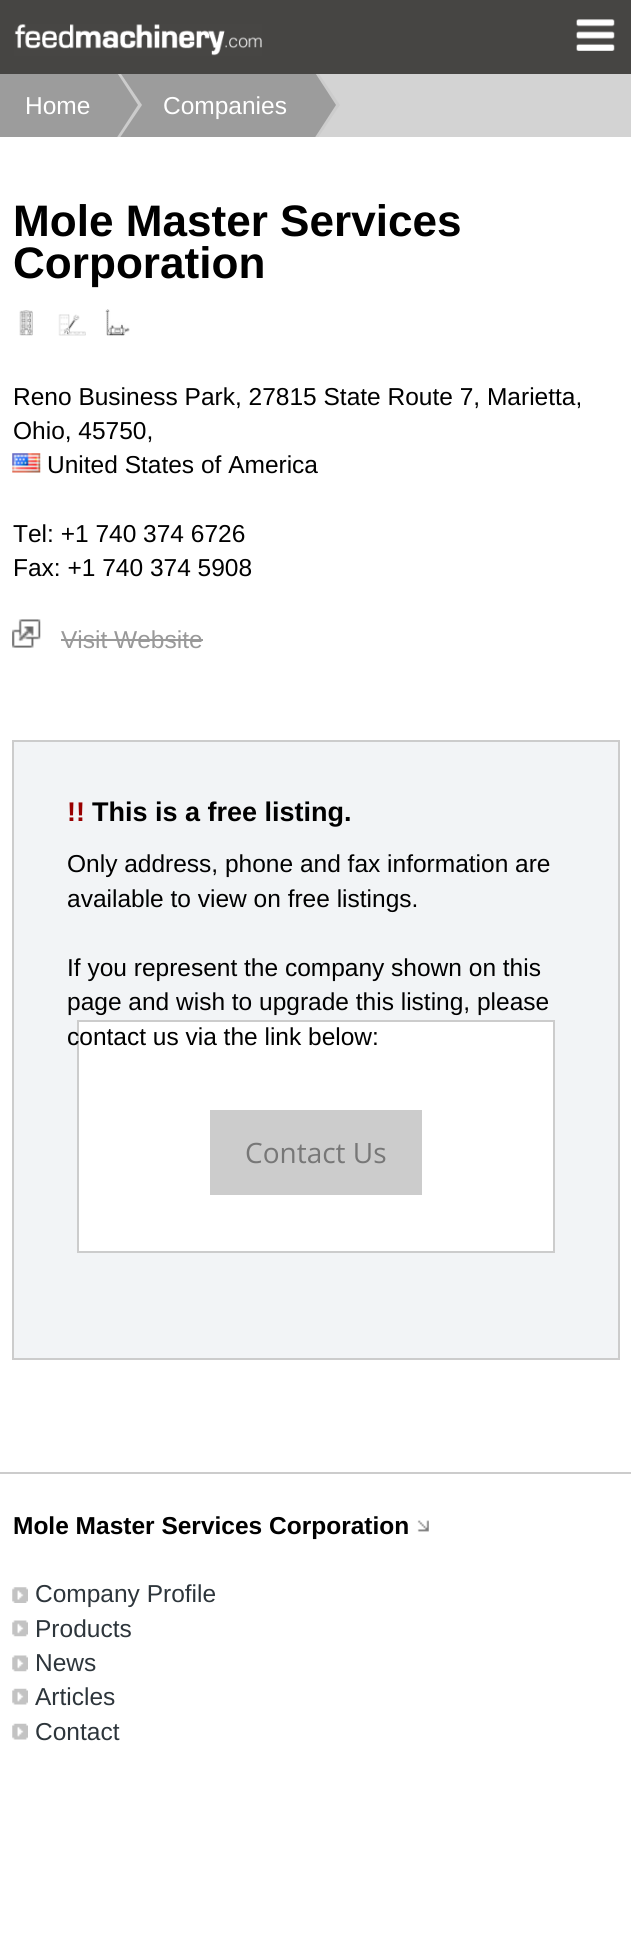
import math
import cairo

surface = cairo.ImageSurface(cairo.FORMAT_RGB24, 631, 1942)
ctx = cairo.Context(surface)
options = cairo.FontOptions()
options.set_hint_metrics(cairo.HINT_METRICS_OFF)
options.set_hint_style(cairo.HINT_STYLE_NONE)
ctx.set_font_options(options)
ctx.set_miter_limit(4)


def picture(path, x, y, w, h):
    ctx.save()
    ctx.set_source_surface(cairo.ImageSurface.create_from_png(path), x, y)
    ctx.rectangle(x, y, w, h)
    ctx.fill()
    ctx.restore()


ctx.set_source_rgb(1, 1, 1)
ctx.paint()
ctx.set_source_rgb(0.275, 0.271, 0.263)
ctx.rectangle(0, 0, 631, 74)
ctx.fill()
picture("img1.png", 14, 24, 248, 32)
picture("img2.png", 576, 19, 39, 32)
ctx.set_source_rgb(0.827, 0.827, 0.827)
ctx.rectangle(318, 74, 313, 63)
ctx.fill()
ctx.set_source_rgb(0.612, 0.612, 0.612)
ctx.rectangle(0, 74, 114, 63)
ctx.fill()
ctx.rectangle(120, 74, 192, 63)
ctx.fill()
ctx.save()
ctx.rectangle(0, 74, 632, 63)
ctx.clip()
ctx.set_source_rgb(0.8, 0.8, 0.8)
ctx.new_path()
ctx.move_to(117, 142)
ctx.line_to(117, 68)
ctx.line_to(142, 105)
ctx.close_path()
ctx.fill()
ctx.set_source_rgb(0.612, 0.612, 0.612)
ctx.new_path()
ctx.move_to(114, 142)
ctx.line_to(114, 68)
ctx.line_to(138, 105)
ctx.close_path()
ctx.fill()
ctx.restore()
ctx.select_font_face("Liberation Sans")
ctx.set_font_size(24.5)
ctx.set_source_rgb(1, 1, 1)
ctx.move_to(25, 114)
ctx.show_text("Home")
ctx.save()
ctx.rectangle(0, 74, 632, 63)
ctx.clip()
ctx.set_source_rgb(0.8, 0.8, 0.8)
ctx.new_path()
ctx.move_to(315, 142)
ctx.line_to(315, 68)
ctx.line_to(340, 105)
ctx.close_path()
ctx.fill()
ctx.set_source_rgb(0.612, 0.612, 0.612)
ctx.new_path()
ctx.move_to(312, 142)
ctx.line_to(312, 68)
ctx.line_to(336, 105)
ctx.close_path()
ctx.fill()
ctx.restore()
ctx.move_to(163, 114)
ctx.show_text("Companies")
ctx.select_font_face("Liberation Sans", cairo.FONT_SLANT_NORMAL, cairo.FONT_WEIGHT_BOLD)
ctx.set_font_size(44.1)
ctx.set_source_rgb(0, 0, 0)
ctx.move_to(13, 236)
ctx.show_text("Mole Master Services")
ctx.move_to(13, 278)
ctx.show_text("Corporation")
picture("img3.png", 19, 310, 14, 26)
picture("img4.png", 58, 314, 28, 22)
picture("img5.png", 105, 309, 25, 27)
ctx.select_font_face("Liberation Sans")
ctx.set_font_size(24.5)
ctx.move_to(13, 405)
ctx.show_text("Reno Business Park, 27815 State Route 7, Marietta,")
ctx.move_to(13, 439)
ctx.show_text("Ohio, 45750,")
picture("img6.png", 12, 453, 29, 20)
ctx.move_to(47, 473)
ctx.show_text("United States of America")
ctx.move_to(13, 542)
ctx.show_text("Tel: +1 740 374 6726")
ctx.move_to(13, 576)
ctx.show_text("Fax: +1 740 374 5908")
picture("img7.png", 12, 619, 29, 29)
ctx.set_source_rgb(0.6, 0.6, 0.6)
ctx.move_to(61, 648)
ctx.show_text("Visit Website")
ctx.rectangle(61, 639, 142, 2)
ctx.fill()
ctx.set_source_rgb(0.949, 0.957, 0.961)
ctx.rectangle(13, 741, 606, 618)
ctx.fill_preserve()
ctx.set_source_rgb(0.8, 0.8, 0.8)
ctx.stroke()
ctx.select_font_face("Liberation Sans", cairo.FONT_SLANT_NORMAL, cairo.FONT_WEIGHT_BOLD)
ctx.set_font_size(27)
ctx.set_source_rgb(0.6, 0, 0)
ctx.move_to(67, 821)
ctx.show_text("!!")
ctx.set_source_rgb(0, 0, 0)
ctx.move_to(92, 821)
ctx.show_text("This is a free listing.")
ctx.select_font_face("Liberation Sans")
ctx.set_font_size(24.5)
ctx.move_to(67, 872)
ctx.show_text("Only address, phone and fax information are")
ctx.move_to(67, 907)
ctx.show_text("available to view on free listings.")
ctx.move_to(67, 976)
ctx.show_text("If you represent the company shown on this")
ctx.move_to(67, 1010)
ctx.show_text("page and wish to upgrade this listing, please")
ctx.set_source_rgb(1, 1, 1)
ctx.rectangle(78, 1021, 476, 231)
ctx.fill_preserve()
ctx.set_source_rgb(0.8, 0.8, 0.8)
ctx.stroke()
ctx.set_source_rgb(0, 0, 0)
ctx.move_to(67, 1045)
ctx.show_text("contact us via the link below:")
ctx.set_source_rgb(0.8, 0.8, 0.8)
ctx.rectangle(210, 1110, 212, 85)
ctx.fill()
ctx.select_font_face("Open Sans")
ctx.set_font_size(28)
ctx.set_source_rgb(0.467, 0.467, 0.467)
ctx.move_to(245, 1163)
ctx.show_text("Contact Us")
ctx.set_source_rgb(0.8, 0.8, 0.8)
ctx.rectangle(0, 1472, 631, 2)
ctx.fill()
ctx.select_font_face("Liberation Sans", cairo.FONT_SLANT_NORMAL, cairo.FONT_WEIGHT_BOLD)
ctx.set_font_size(24.5)
ctx.set_source_rgb(0, 0, 0)
ctx.move_to(13, 1534)
ctx.show_text("Mole Master Services Corporation")
picture("img8.png", 417, 1520, 12, 12)
picture("img9.png", 12, 1587, 16, 16)
ctx.select_font_face("Liberation Sans")
ctx.set_source_rgb(0.176, 0.208, 0.231)
ctx.move_to(35, 1602)
ctx.show_text("Company Profile")
picture("img10.png", 12, 1620, 16, 17)
ctx.move_to(35, 1637)
ctx.show_text("Products")
picture("img10.png", 12, 1655, 16, 17)
ctx.move_to(35, 1671)
ctx.show_text("News")
picture("img11.png", 12, 1688, 16, 17)
ctx.move_to(35, 1705)
ctx.show_text("Articles")
picture("img11.png", 12, 1723, 16, 17)
ctx.move_to(35, 1740)
ctx.show_text("Contact")
surface.write_to_png("page.png")
